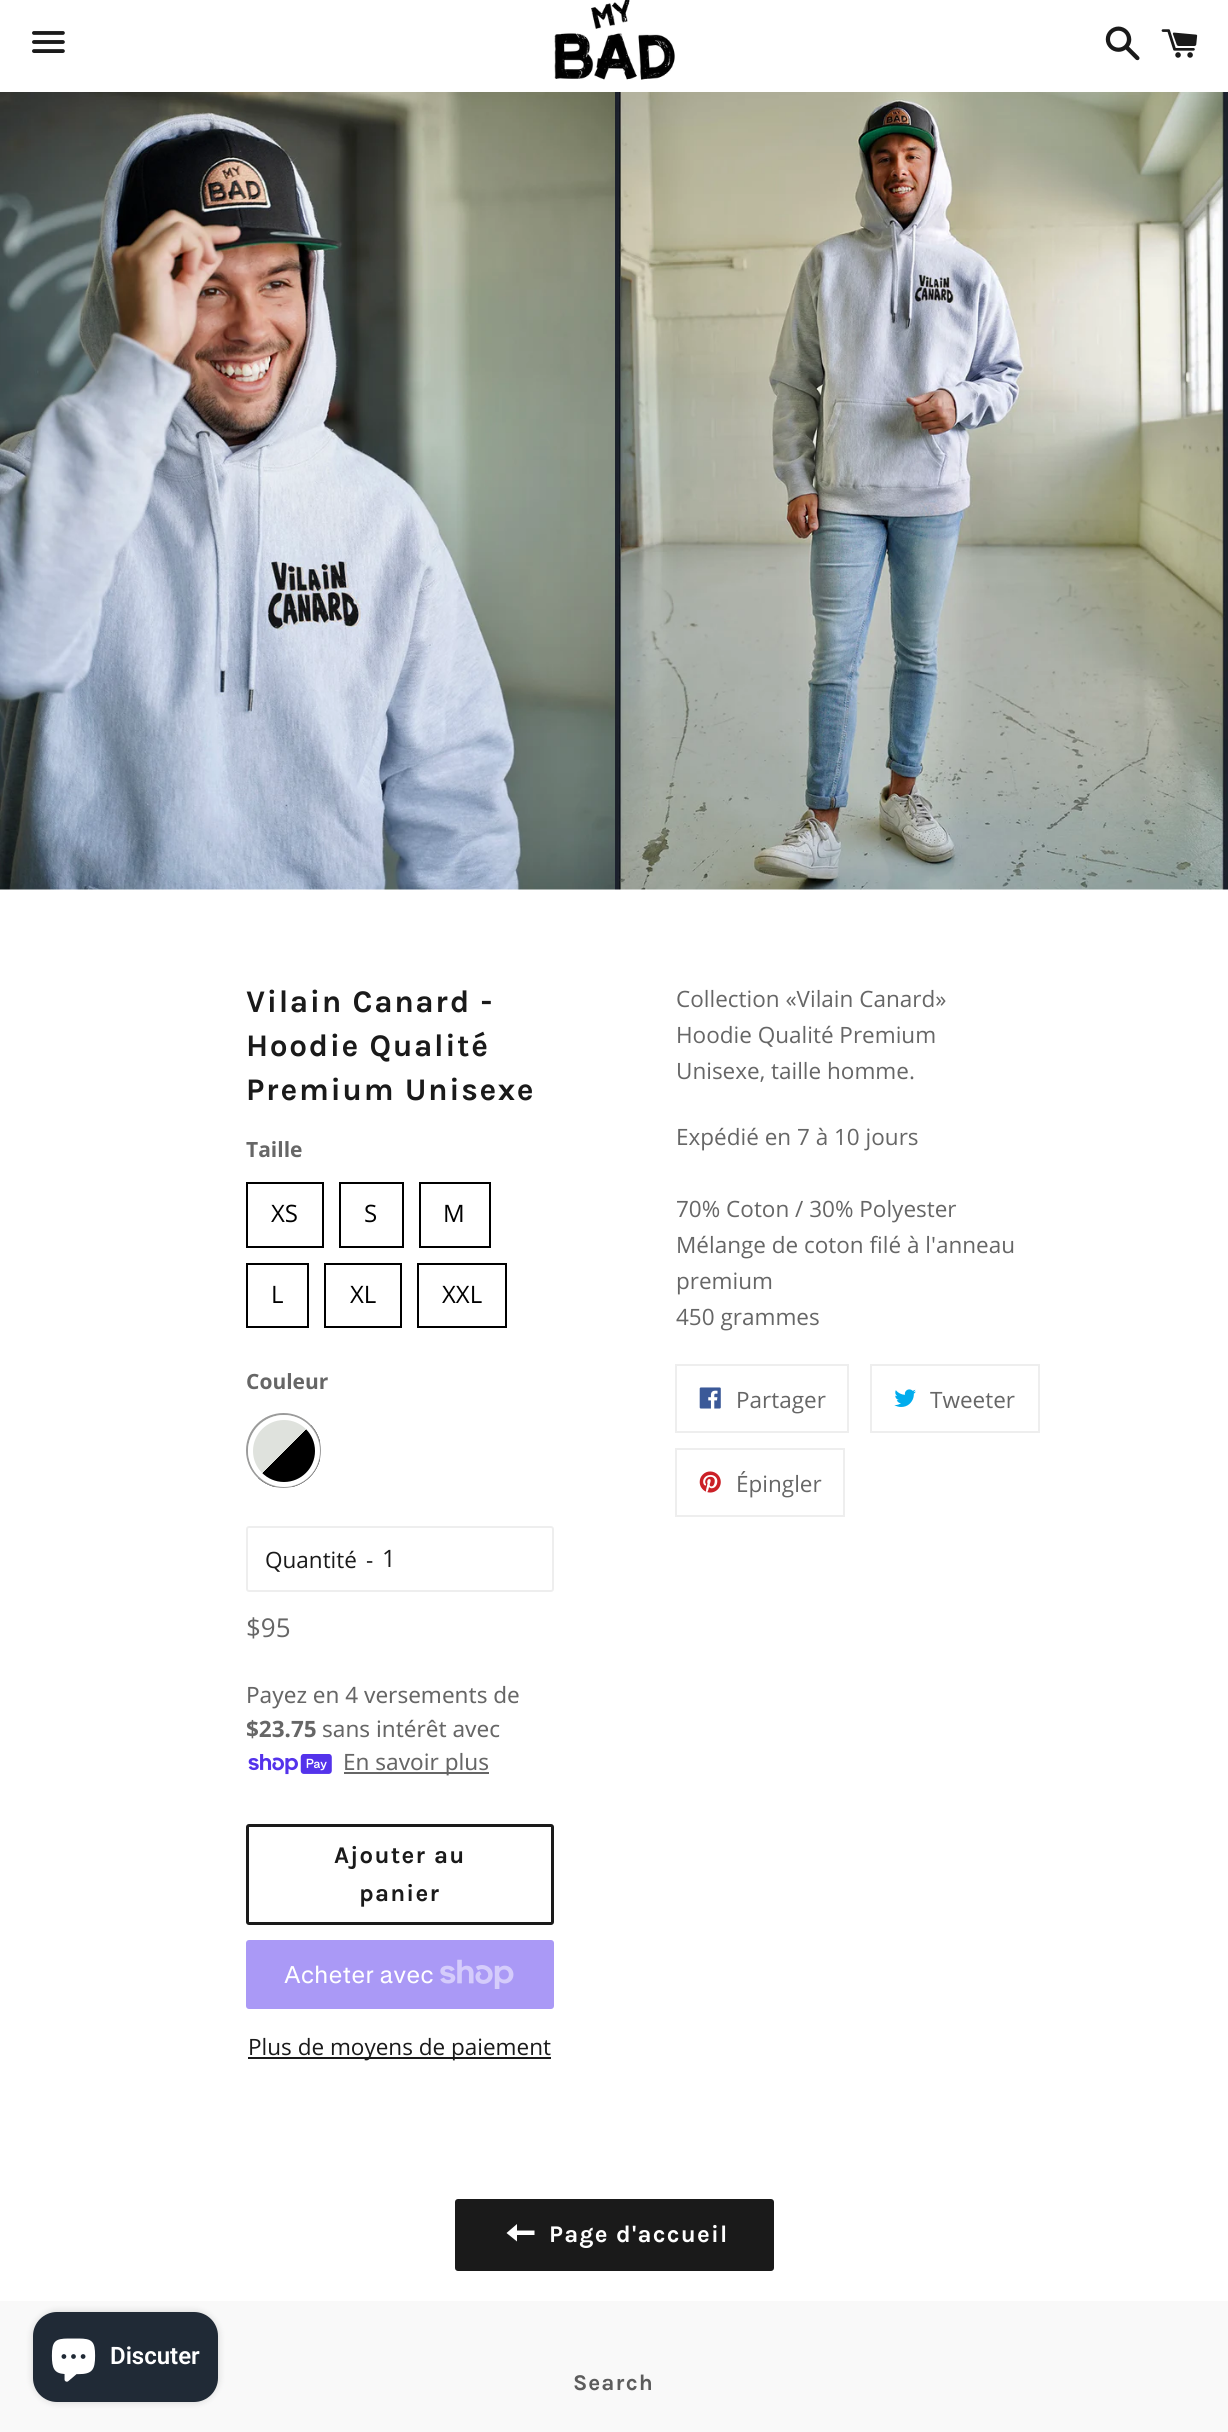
import math
import cairo

surface = cairo.ImageSurface(cairo.FORMAT_RGB24, 1228, 2432)
ctx = cairo.Context(surface)
options = cairo.FontOptions()
options.set_hint_metrics(cairo.HINT_METRICS_OFF)
options.set_hint_style(cairo.HINT_STYLE_NONE)
ctx.set_font_options(options)
ctx.set_miter_limit(4)


def spaced_text(x, y, s, letter, word):
    ctx.move_to(x, y)
    for ch in s:
        ctx.show_text(ch)
        ctx.rel_move_to(letter + word * (ch == ' '), 0)


def round_rect(x, y, w, h, r):
    ctx.new_sub_path()
    for i, (u, v) in enumerate([(x + w - r, y + h - r), (x + r, y + h - r), (x + r, y + r), (x + w - r, y + r)]):
        ctx.arc(u, v, r, i * math.pi / 2, (i + 1) * math.pi / 2)
    ctx.close_path()


def shadow(x, y, w, h, r, blur, alpha):
    ctx.push_group_with_content(cairo.CONTENT_ALPHA)
    ctx.set_operator(cairo.OPERATOR_SOURCE)
    for i in range(15, -16, -2):
        e = blur * i / 6
        if min(w, h) + 2 * e > 0:
            ctx.set_source_rgba(0, 0, 0, alpha * math.erfc((i - 1) / 8.5) / 2)
            round_rect(x - e, y - e, w + 2 * e, h + 2 * e, max(0, min(r + e + blur * .6, min(w, h) / 2 + e)))
            ctx.fill()
    ctx.mask(ctx.pop_group())


def picture(path, x, y, w, h):
    ctx.save()
    ctx.set_source_surface(cairo.ImageSurface.create_from_png(path), x, y)
    ctx.rectangle(x, y, w, h)
    ctx.fill()
    ctx.restore()


ctx.set_source_rgb(1, 1, 1)
ctx.paint()
picture("img1.png", 32, 31, 33, 22)
picture("img2.png", 554, 0, 121, 80)
picture("img3.png", 1105, 26, 35, 35)
picture("img4.png", 1161, 29, 37, 29)
picture("img5.png", 0, 92, 615, 798)
picture("img6.png", 615, 92, 613, 798)
ctx.select_font_face("Karla", cairo.FONT_SLANT_NORMAL, cairo.FONT_WEIGHT_BOLD)
ctx.set_font_size(31.5)
ctx.set_source_rgb(0.102, 0.102, 0.102)
spaced_text(246, 1012, "Vilain Canard -", 1.6, 0)
spaced_text(246, 1056, "Hoodie Qualité", 1.6, 0)
spaced_text(246, 1100, "Premium Unisexe", 1.6, 0)
ctx.select_font_face("Open Sans", cairo.FONT_SLANT_NORMAL, cairo.FONT_WEIGHT_BOLD)
ctx.set_font_size(21)
ctx.set_source_rgb(0.4, 0.4, 0.4)
ctx.move_to(246, 1157)
ctx.show_text("Taille")
ctx.rectangle(247, 1183, 76, 64)
ctx.set_source_rgb(0, 0, 0)
ctx.stroke()
ctx.select_font_face("Open Sans")
ctx.set_font_size(24)
ctx.move_to(271, 1222)
ctx.show_text("XS")
ctx.rectangle(340, 1183, 63, 64)
ctx.stroke()
ctx.move_to(364, 1222)
ctx.show_text("S")
ctx.rectangle(420, 1183, 70, 64)
ctx.stroke()
ctx.move_to(443, 1222)
ctx.show_text("M")
ctx.rectangle(247, 1264, 61, 63)
ctx.stroke()
ctx.move_to(271, 1303)
ctx.show_text("L")
ctx.rectangle(325, 1264, 76, 63)
ctx.stroke()
ctx.move_to(350, 1303)
ctx.show_text("XL")
ctx.rectangle(418, 1264, 88, 63)
ctx.stroke()
ctx.move_to(442, 1303)
ctx.show_text("XXL")
ctx.select_font_face("Open Sans", cairo.FONT_SLANT_NORMAL, cairo.FONT_WEIGHT_BOLD)
ctx.set_font_size(21)
ctx.set_source_rgb(0.4, 0.4, 0.4)
ctx.move_to(246, 1389)
ctx.show_text("Couleur")
ctx.save()
round_rect(246, 1413, 75, 75, 37.5)
ctx.clip()
gradient = cairo.LinearGradient(320, 1487, 248, 1415)
gradient.add_color_stop_rgba(0.5, 0, 0, 0, 1)
gradient.add_color_stop_rgba(0.5, 0.875, 0.886, 0.867, 1)
ctx.set_source(gradient)
ctx.rectangle(248, 1415, 72, 72)
ctx.fill()
ctx.restore()
ctx.arc(283.5, 1450.5, 36.5, 0, 2 * math.pi)
ctx.set_source_rgb(0.608, 0.608, 0.608)
ctx.stroke()
ctx.arc(284, 1451, 33.5, 0, 2 * math.pi)
ctx.set_source_rgb(1, 1, 1)
ctx.set_line_width(5)
ctx.stroke()
round_rect(247, 1527, 306, 64, 2)
ctx.set_source_rgb(0.933, 0.933, 0.933)
ctx.set_line_width(2)
ctx.stroke()
ctx.select_font_face("Open Sans")
ctx.set_font_size(22.5)
ctx.set_source_rgb(0.102, 0.102, 0.102)
ctx.move_to(265, 1568)
ctx.show_text("Quantité")
ctx.move_to(366, 1568)
ctx.show_text("-")
ctx.set_font_size(24)
ctx.move_to(382, 1567)
ctx.show_text("1")
ctx.set_font_size(26)
ctx.set_source_rgb(0.4, 0.4, 0.4)
ctx.move_to(246, 1637)
ctx.show_text("$95")
ctx.select_font_face("Noto Sans")
ctx.set_font_size(22.5)
ctx.move_to(246, 1703)
ctx.show_text("Payez en 4 versements de")
ctx.select_font_face("Noto Sans", cairo.FONT_SLANT_NORMAL, cairo.FONT_WEIGHT_BOLD)
ctx.move_to(246, 1737)
ctx.show_text("$23.75")
ctx.select_font_face("Noto Sans")
ctx.move_to(322, 1737)
ctx.show_text("sans intérêt avec")
picture("img7.png", 248, 1754, 84, 21)
ctx.rectangle(344, 1772, 145, 2)
ctx.fill()
ctx.move_to(343, 1770)
ctx.show_text("En savoir plus")
round_rect(247.5, 1825.5, 305, 98, 1.5)
ctx.set_source_rgb(0.102, 0.102, 0.102)
ctx.set_line_width(3)
ctx.stroke()
ctx.select_font_face("Karla", cairo.FONT_SLANT_NORMAL, cairo.FONT_WEIGHT_BOLD)
ctx.set_font_size(24)
spaced_text(334, 1863, "Ajouter au", 1.25, 0)
spaced_text(359, 1901, "panier", 1.25, 0)
ctx.set_source_rgb(0.667, 0.6, 0.961)
round_rect(246, 1940, 308, 69, 3)
ctx.fill()
ctx.select_font_face("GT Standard")
ctx.set_source_rgb(1, 1, 1)
ctx.move_to(284, 1983)
ctx.show_text("Acheter avec")
picture("img8.png", 440, 1959, 74, 30)
ctx.set_source_rgb(0.102, 0.102, 0.102)
ctx.rectangle(248, 2057, 303, 2)
ctx.fill()
ctx.select_font_face("Open Sans")
ctx.set_font_size(22.5)
ctx.move_to(248, 2055)
ctx.show_text("Plus de moyens de paiement")
ctx.set_source_rgb(0.4, 0.4, 0.4)
ctx.move_to(676, 1007)
ctx.show_text("Collection «Vilain Canard»")
ctx.move_to(676, 1043)
ctx.show_text("Hoodie Qualité Premium")
ctx.move_to(676, 1079)
ctx.show_text("Unisexe, taille homme.")
ctx.move_to(676, 1145)
ctx.show_text("Expédié en 7 à 10 jours")
ctx.move_to(676, 1217)
ctx.show_text("70% Coton / 30% Polyester")
ctx.move_to(676, 1253)
ctx.show_text("Mélange de coton filé à l'anneau")
ctx.move_to(676, 1289)
ctx.show_text("premium")
ctx.move_to(676, 1325)
ctx.show_text("450 grammes")
ctx.rectangle(676, 1365, 172, 67)
ctx.set_source_rgb(0.933, 0.933, 0.933)
ctx.set_line_width(2)
ctx.stroke()
picture("img9.png", 699, 1387, 22, 22)
ctx.set_source_rgb(0.4, 0.4, 0.4)
ctx.move_to(736, 1408)
ctx.show_text("Partager")
ctx.rectangle(871, 1365, 168, 67)
ctx.set_source_rgb(0.933, 0.933, 0.933)
ctx.stroke()
picture("img10.png", 894, 1389, 22, 18)
ctx.set_source_rgb(0.4, 0.4, 0.4)
ctx.move_to(930, 1408)
ctx.show_text("Tweeter")
ctx.rectangle(676, 1449, 168, 67)
ctx.set_source_rgb(0.933, 0.933, 0.933)
ctx.stroke()
picture("img11.png", 699, 1471, 22, 22)
ctx.set_source_rgb(0.4, 0.4, 0.4)
ctx.move_to(736, 1492)
ctx.show_text("Épingler")
ctx.set_source_rgb(0.102, 0.102, 0.102)
round_rect(455, 2199, 319, 72, 3)
ctx.fill()
ctx.set_source_rgb(1, 1, 1)
ctx.new_path()
ctx.move_to(517, 2230.5)
ctx.line_to(517, 2224)
ctx.line_to(506.5, 2233)
ctx.line_to(517, 2241.5)
ctx.line_to(517, 2235)
ctx.line_to(534.5, 2235)
ctx.line_to(534.5, 2230.5)
ctx.close_path()
ctx.fill()
ctx.select_font_face("Karla", cairo.FONT_SLANT_NORMAL, cairo.FONT_WEIGHT_BOLD)
ctx.set_font_size(24)
spaced_text(549, 2242, "Page d'accueil", 1.25, 0)
ctx.set_source_rgb(0.976, 0.976, 0.976)
ctx.rectangle(0, 2301, 1228, 131)
ctx.fill()
ctx.set_source_rgb(0, 0, 0)
shadow(33, 2312, 185, 90, 24, 4, 0.15)
ctx.set_source_rgb(0.125, 0.165, 0.212)
round_rect(33, 2312, 185, 90, 24)
ctx.fill()
picture("img12.png", 51, 2338, 45, 44)
ctx.select_font_face("Roboto SemiBold")
ctx.set_source_rgb(1, 1, 1)
ctx.move_to(110, 2364)
ctx.show_text("Discuter")
ctx.select_font_face("Karla", cairo.FONT_SLANT_NORMAL, cairo.FONT_WEIGHT_BOLD)
ctx.set_font_size(22.5)
ctx.set_source_rgb(0.361, 0.361, 0.361)
spaced_text(573, 2390, "Search", 1, 0)
surface.write_to_png("page.png")
